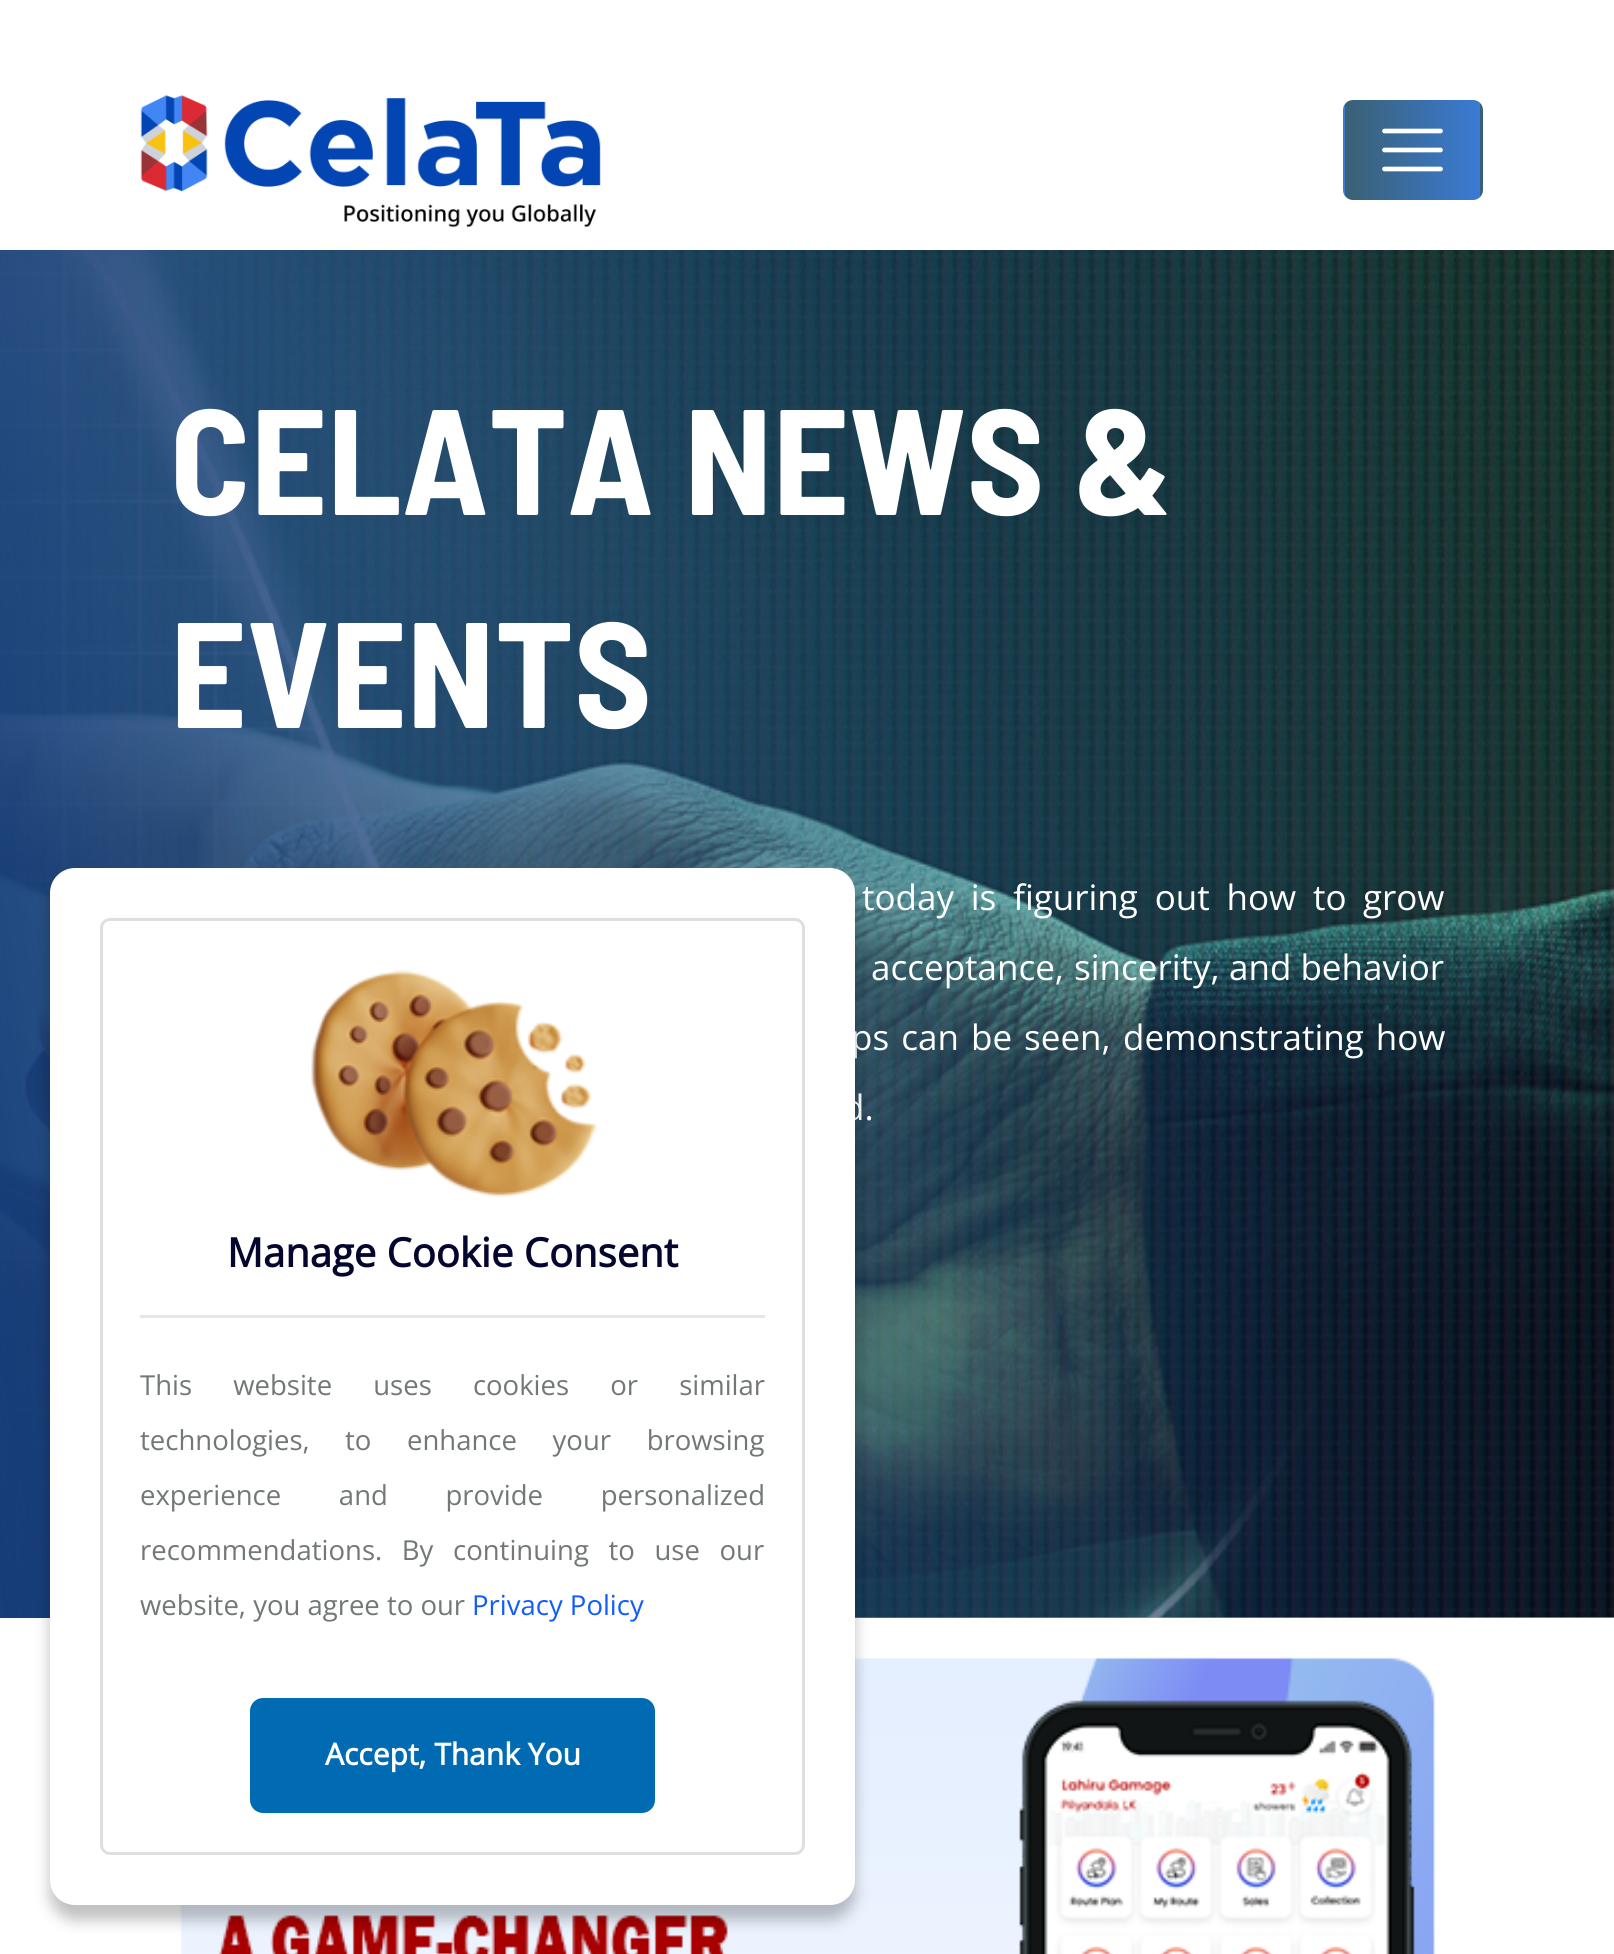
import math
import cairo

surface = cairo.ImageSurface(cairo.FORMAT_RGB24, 1614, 1954)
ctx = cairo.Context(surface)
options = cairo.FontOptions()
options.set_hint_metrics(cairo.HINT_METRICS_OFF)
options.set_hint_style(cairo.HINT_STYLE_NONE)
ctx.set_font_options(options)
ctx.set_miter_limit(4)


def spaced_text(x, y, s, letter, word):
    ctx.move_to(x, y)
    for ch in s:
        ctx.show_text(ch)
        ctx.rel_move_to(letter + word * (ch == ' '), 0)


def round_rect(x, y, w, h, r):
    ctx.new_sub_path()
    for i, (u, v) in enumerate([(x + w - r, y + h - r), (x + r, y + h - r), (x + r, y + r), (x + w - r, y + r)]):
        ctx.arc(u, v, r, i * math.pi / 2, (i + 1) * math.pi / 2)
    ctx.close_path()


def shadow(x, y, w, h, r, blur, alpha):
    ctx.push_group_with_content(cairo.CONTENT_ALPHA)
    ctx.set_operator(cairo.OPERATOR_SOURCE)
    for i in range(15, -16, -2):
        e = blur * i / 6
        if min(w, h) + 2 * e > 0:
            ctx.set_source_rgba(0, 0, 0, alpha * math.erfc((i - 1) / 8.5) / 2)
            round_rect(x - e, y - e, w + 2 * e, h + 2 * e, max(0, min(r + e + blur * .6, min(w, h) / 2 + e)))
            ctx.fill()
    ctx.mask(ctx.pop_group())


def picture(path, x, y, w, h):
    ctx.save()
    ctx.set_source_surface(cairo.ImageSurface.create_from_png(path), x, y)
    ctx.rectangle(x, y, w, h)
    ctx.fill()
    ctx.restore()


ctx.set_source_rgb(1, 1, 1)
ctx.paint()
picture("img1.png", 140, 95, 461, 133)
ctx.save()
round_rect(1343, 100, 140, 100, 10)
ctx.clip()
gradient = cairo.LinearGradient(1210, 150, 1345, 150)
gradient.add_color_stop_rgba(0, 0.227, 0.376, 0.451, 1)
gradient.add_color_stop_rgba(1, 0.227, 0.482, 0.835, 1)
ctx.set_source(gradient)
ctx.rectangle(1343, 100, 2, 100)
ctx.fill()
gradient = cairo.LinearGradient(1345, 150, 1480, 150)
gradient.add_color_stop_rgba(0, 0.227, 0.376, 0.451, 1)
gradient.add_color_stop_rgba(1, 0.227, 0.482, 0.835, 1)
ctx.set_source(gradient)
ctx.rectangle(1345, 100, 135, 100)
ctx.fill()
gradient = cairo.LinearGradient(1480, 150, 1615, 150)
gradient.add_color_stop_rgba(0, 0.227, 0.376, 0.451, 1)
gradient.add_color_stop_rgba(1, 0.227, 0.482, 0.835, 1)
ctx.set_source(gradient)
ctx.rectangle(1480, 100, 3, 100)
ctx.fill()
ctx.restore()
ctx.new_path()
ctx.move_to(1384.5, 131)
ctx.line_to(1440.5, 131)
ctx.move_to(1384.5, 150)
ctx.line_to(1440.5, 150)
ctx.move_to(1384.5, 169)
ctx.line_to(1440.5, 169)
ctx.set_source_rgb(1, 1, 1)
ctx.set_line_width(4.7)
ctx.set_line_cap(cairo.LINE_CAP_ROUND)
ctx.stroke()
picture("img2.png", 0, 250, 1614, 1368)
gradient = cairo.LinearGradient(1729, 646, -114, 971)
gradient.add_color_stop_rgba(0, 0.09, 0.239, 0.478, 0)
gradient.add_color_stop_rgba(1, 0.09, 0.239, 0.478, 1)
ctx.set_source(gradient)
ctx.rectangle(0, 250, 1614, 1368)
ctx.fill()
ctx.select_font_face("Barlow Semi Condensed", cairo.FONT_SLANT_NORMAL, cairo.FONT_WEIGHT_BOLD)
ctx.set_font_size(150)
ctx.set_source_rgb(1, 1, 1)
ctx.move_to(170, 515)
ctx.show_text("CELATA NEWS &")
ctx.move_to(170, 728)
ctx.show_text("EVENTS")
ctx.select_font_face("Open Sans")
ctx.set_font_size(35)
spaced_text(862, 910, "today is figuring out how to", 0, 7.75)
ctx.move_to(1363, 910)
ctx.show_text("grow")
spaced_text(871, 980, "acceptance, sincerity,", 0, 1)
ctx.move_to(1229, 980)
ctx.show_text("and behavior")
spaced_text(851, 1050, "ps can be seen,", 0, 3)
spaced_text(1123, 1050, "demonstrating how", 0, 3)
ctx.move_to(843, 1120)
ctx.show_text("d.")
picture("img4.png", 180, 1657, 1255, 297)
ctx.set_source_rgb(0, 0, 0)
shadow(50, 883, 805, 1037, 25, 7.5, 0.25)
ctx.set_source_rgb(1, 1, 1)
round_rect(50, 868, 805, 1037, 25)
ctx.fill()
round_rect(101.5, 919.5, 702, 934, 8.5)
ctx.set_source_rgb(0.875, 0.875, 0.875)
ctx.set_line_width(3)
ctx.set_line_cap(cairo.LINE_CAP_BUTT)
ctx.stroke()
picture("img3.png", 311, 969, 287, 228)
ctx.select_font_face("Open Sans", cairo.FONT_SLANT_NORMAL, cairo.FONT_WEIGHT_BOLD)
ctx.set_font_size(40)
ctx.set_source_rgb(0.016, 0.027, 0.18)
ctx.move_to(227, 1267)
ctx.show_text("Manage Cookie Consent")
ctx.set_source_rgb(0.902, 0.902, 0.902)
ctx.rectangle(140, 1315, 625, 3)
ctx.fill()
ctx.select_font_face("Open Sans")
ctx.set_font_size(27.5)
ctx.set_source_rgb(0.447, 0.467, 0.467)
spaced_text(140, 1395, "This website uses cookies or similar", 0, 34)
ctx.move_to(140, 1450)
ctx.show_text("technologies,")
spaced_text(345, 1450, "to enhance your browsing", 0, 28.5)
spaced_text(140, 1505, "experience and provide personalized", 0, 50.5)
spaced_text(140, 1560, "recommendations. By continuing to use our", 0, 12.5)
ctx.move_to(140, 1615)
ctx.show_text("website, you agree to our")
ctx.set_source_rgb(0.067, 0.361, 0.98)
ctx.move_to(472, 1615)
ctx.show_text("Privacy Policy")
ctx.set_source_rgb(0, 0.42, 0.702)
round_rect(250, 1698, 405, 115, 13)
ctx.fill()
ctx.select_font_face("Open Sans", cairo.FONT_SLANT_NORMAL, cairo.FONT_WEIGHT_BOLD)
ctx.set_font_size(30)
ctx.set_source_rgb(1, 1, 1)
ctx.move_to(325, 1765)
ctx.show_text("Accept, Thank You")
surface.write_to_png("page.png")
